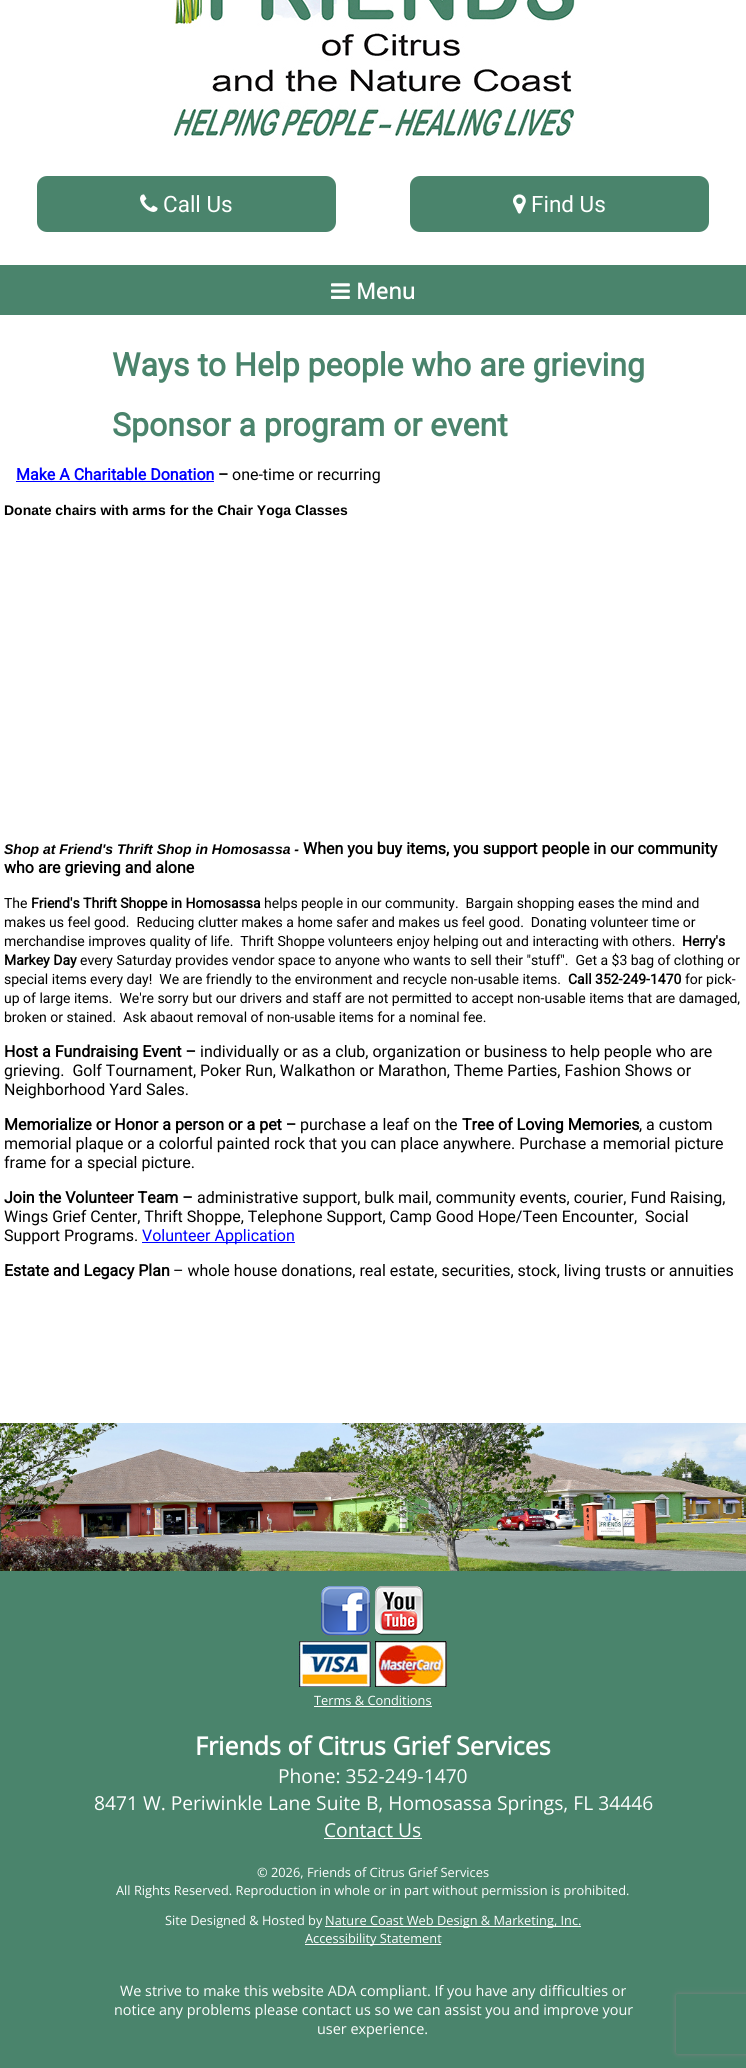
import math
import cairo

surface = cairo.ImageSurface(cairo.FORMAT_RGB24, 746, 2068)
ctx = cairo.Context(surface)
options = cairo.FontOptions()
options.set_hint_metrics(cairo.HINT_METRICS_OFF)
options.set_hint_style(cairo.HINT_STYLE_NONE)
ctx.set_font_options(options)
ctx.set_miter_limit(4)


def round_rect(x, y, w, h, r):
    ctx.new_sub_path()
    for i, (u, v) in enumerate([(x + w - r, y + h - r), (x + r, y + h - r), (x + r, y + r), (x + w - r, y + r)]):
        ctx.arc(u, v, r, i * math.pi / 2, (i + 1) * math.pi / 2)
    ctx.close_path()


def shadow(x, y, w, h, r, blur, alpha):
    ctx.push_group_with_content(cairo.CONTENT_ALPHA)
    ctx.set_operator(cairo.OPERATOR_SOURCE)
    for i in range(15, -16, -2):
        e = blur * i / 6
        if min(w, h) + 2 * e > 0:
            ctx.set_source_rgba(0, 0, 0, alpha * math.erfc((i - 1) / 8.5) / 2)
            round_rect(x - e, y - e, w + 2 * e, h + 2 * e, max(0, min(r + e + blur * .6, min(w, h) / 2 + e)))
            ctx.fill()
    ctx.mask(ctx.pop_group())


def picture(path, x, y, w, h):
    ctx.save()
    ctx.set_source_surface(cairo.ImageSurface.create_from_png(path), x, y)
    ctx.rectangle(x, y, w, h)
    ctx.fill()
    ctx.restore()


ctx.set_source_rgb(1, 1, 1)
ctx.paint()
picture("img1.png", 173, 0, 402, 139)
ctx.set_source_rgb(0.29, 0.518, 0.424)
round_rect(37, 176, 299, 56, 10)
ctx.fill()
picture("img2.png", 140, 194, 18, 18)
ctx.select_font_face("Roboto")
ctx.set_font_size(22.5)
ctx.set_source_rgb(1, 1, 1)
ctx.move_to(163, 212)
ctx.show_text("Call Us")
ctx.set_source_rgb(0.29, 0.518, 0.424)
round_rect(410, 176, 299, 56, 10)
ctx.fill()
picture("img3.png", 513, 194, 13, 20)
ctx.set_source_rgb(1, 1, 1)
ctx.move_to(531, 212)
ctx.show_text("Find Us")
ctx.set_source_rgb(0.29, 0.518, 0.424)
ctx.rectangle(0, 265, 746, 50)
ctx.fill()
picture("img4.png", 331, 283, 19, 16)
ctx.select_font_face("Open Sans", cairo.FONT_SLANT_NORMAL, cairo.FONT_WEIGHT_BOLD)
ctx.set_font_size(22)
ctx.set_source_rgb(1, 1, 1)
ctx.move_to(356, 299)
ctx.show_text("Menu")
ctx.select_font_face("Roboto", cairo.FONT_SLANT_NORMAL, cairo.FONT_WEIGHT_BOLD)
ctx.set_font_size(32)
ctx.set_source_rgb(0.29, 0.518, 0.424)
ctx.move_to(112, 376)
ctx.show_text("Ways to Help people who are grieving")
ctx.move_to(112, 436)
ctx.show_text("Sponsor a program or event")
ctx.set_font_size(16)
ctx.set_source_rgb(0, 0, 1)
ctx.move_to(16, 480)
ctx.show_text("Make A Charitable Donation")
ctx.rectangle(16, 481, 198, 1)
ctx.fill()
ctx.set_source_rgb(0, 0, 0)
ctx.move_to(218, 480)
ctx.show_text("–")
ctx.select_font_face("Roboto")
ctx.move_to(232, 480)
ctx.show_text("one-time or recurring")
ctx.select_font_face("Liberation Sans", cairo.FONT_SLANT_NORMAL, cairo.FONT_WEIGHT_BOLD)
ctx.set_font_size(14)
ctx.move_to(4, 515)
ctx.show_text("Donate chairs with arms for the Chair Yoga Classes")
ctx.select_font_face("Liberation Sans", cairo.FONT_SLANT_ITALIC, cairo.FONT_WEIGHT_BOLD)
ctx.move_to(4, 854)
ctx.show_text("Shop at Friend's Thrift Shop in Homosassa -")
ctx.select_font_face("Roboto", cairo.FONT_SLANT_NORMAL, cairo.FONT_WEIGHT_BOLD)
ctx.set_font_size(16)
ctx.move_to(303, 854)
ctx.show_text("When you buy items, you support people in our community")
ctx.move_to(4, 873)
ctx.show_text("who are grieving and alone")
ctx.select_font_face("Roboto")
ctx.set_font_size(14)
ctx.move_to(4, 908)
ctx.show_text("The")
ctx.select_font_face("Roboto", cairo.FONT_SLANT_NORMAL, cairo.FONT_WEIGHT_BOLD)
ctx.move_to(31, 908)
ctx.show_text("Friend's Thrift Shoppe in Homosassa")
ctx.select_font_face("Roboto")
ctx.move_to(264, 908)
ctx.show_text("helps people in our community.  Bargain shopping eases the mind and")
ctx.move_to(4, 927)
ctx.show_text("makes us feel good.  Reducing clutter makes a home safer and makes us feel good.  Donating volunteer time or")
ctx.move_to(4, 946)
ctx.show_text("merchandise improves quality of life.  Thrift Shoppe volunteers enjoy helping out and interacting with others.")
ctx.select_font_face("Roboto", cairo.FONT_SLANT_NORMAL, cairo.FONT_WEIGHT_BOLD)
ctx.move_to(682, 946)
ctx.show_text("Herry's")
ctx.move_to(4, 965)
ctx.show_text("Markey Day")
ctx.select_font_face("Roboto")
ctx.move_to(80, 965)
ctx.show_text("every Saturday provides vendor space to anyone who wants to sell their \"stuff\".  Get a $3 bag of clothing or")
ctx.move_to(4, 984)
ctx.show_text("special items every day!  We are friendly to the environment and recycle non-usable items.")
ctx.select_font_face("Roboto", cairo.FONT_SLANT_NORMAL, cairo.FONT_WEIGHT_BOLD)
ctx.move_to(568, 984)
ctx.show_text("Call 352-249-1470")
ctx.select_font_face("Roboto")
ctx.move_to(685, 984)
ctx.show_text("for pick-")
ctx.move_to(4, 1003)
ctx.show_text("up of large items.  We're sorry but our drivers and staff are not permitted to accept non-usable items that are damaged,")
ctx.move_to(4, 1022)
ctx.show_text("broken or stained.  Ask abaout removal of non-usable items for a nominal fee.")
ctx.select_font_face("Roboto", cairo.FONT_SLANT_NORMAL, cairo.FONT_WEIGHT_BOLD)
ctx.set_font_size(16)
ctx.move_to(4, 1057)
ctx.show_text("Host a Fundraising Event –")
ctx.select_font_face("Roboto")
ctx.move_to(200, 1057)
ctx.show_text("individually or as a club, organization or business to help people who are")
ctx.move_to(4, 1076)
ctx.show_text("grieving.  Golf Tournament, Poker Run, Walkathon or Marathon, Theme Parties, Fashion Shows or")
ctx.move_to(4, 1095)
ctx.show_text("Neighborhood Yard Sales.")
ctx.select_font_face("Roboto", cairo.FONT_SLANT_NORMAL, cairo.FONT_WEIGHT_BOLD)
ctx.move_to(4, 1130)
ctx.show_text("Memorialize or Honor a person or a pet –")
ctx.select_font_face("Roboto")
ctx.move_to(300, 1130)
ctx.show_text("purchase a leaf on the")
ctx.select_font_face("Roboto", cairo.FONT_SLANT_NORMAL, cairo.FONT_WEIGHT_BOLD)
ctx.move_to(462, 1130)
ctx.show_text("Tree of Loving Memories")
ctx.select_font_face("Roboto")
ctx.move_to(639, 1130)
ctx.show_text(", a custom")
ctx.move_to(4, 1149)
ctx.show_text("memorial plaque or a colorful painted rock that you can place anywhere. Purchase a memorial picture")
ctx.move_to(4, 1168)
ctx.show_text("frame for a special picture.")
ctx.select_font_face("Roboto", cairo.FONT_SLANT_NORMAL, cairo.FONT_WEIGHT_BOLD)
ctx.move_to(4, 1203)
ctx.show_text("Join the Volunteer Team –")
ctx.select_font_face("Roboto")
ctx.move_to(197, 1203)
ctx.show_text("administrative support, bulk mail, community events, courier, Fund Raising,")
ctx.move_to(4, 1222)
ctx.show_text("Wings Grief Center, Thrift Shoppe, Telephone Support, Camp Good Hope/Teen Encounter,  Social")
ctx.move_to(4, 1241)
ctx.show_text("Support Programs.")
ctx.set_source_rgb(0, 0, 1)
ctx.rectangle(142, 1242, 153, 1)
ctx.fill()
ctx.move_to(142, 1241)
ctx.show_text("Volunteer Application")
ctx.select_font_face("Roboto", cairo.FONT_SLANT_NORMAL, cairo.FONT_WEIGHT_BOLD)
ctx.set_source_rgb(0, 0, 0)
ctx.move_to(4, 1276)
ctx.show_text("Estate and Legacy Plan")
ctx.select_font_face("Roboto")
ctx.move_to(173, 1276)
ctx.show_text("– whole house donations, real estate, securities, stock, living trusts or annuities")
picture("img5.png", 0, 1423, 746, 148)
ctx.set_source_rgb(0.29, 0.518, 0.424)
ctx.rectangle(0, 1571, 746, 497)
ctx.fill()
picture("img6.png", 321, 1586, 50, 50)
picture("img7.png", 375, 1586, 49, 50)
picture("img8.png", 299, 1641, 148, 46)
ctx.select_font_face("Open Sans")
ctx.set_font_size(12.8)
ctx.set_source_rgb(1, 1, 1)
ctx.move_to(314, 1705)
ctx.show_text("Terms & Conditions")
ctx.rectangle(314, 1706, 118, 1)
ctx.fill()
ctx.select_font_face("Open Sans", cairo.FONT_SLANT_NORMAL, cairo.FONT_WEIGHT_BOLD)
ctx.set_font_size(25)
ctx.move_to(195, 1755)
ctx.show_text("Friends of Citrus Grief Services")
ctx.select_font_face("Open Sans")
ctx.set_font_size(19.2)
ctx.move_to(278, 1783)
ctx.show_text("Phone: 352-249-1470")
ctx.move_to(94, 1810)
ctx.show_text("8471 W. Periwinkle Lane Suite B, Homosassa Springs, FL 34446")
ctx.move_to(324, 1837)
ctx.show_text("Contact Us")
ctx.rectangle(324, 1838, 98, 1)
ctx.fill()
ctx.set_font_size(12.8)
ctx.move_to(257, 1877)
ctx.show_text("© 2026, Friends of Citrus Grief Services")
ctx.move_to(116, 1895)
ctx.show_text("All Rights Reserved. Reproduction in whole or in part without permission is prohibited.")
ctx.move_to(165, 1925)
ctx.show_text("Site Designed & Hosted by")
ctx.rectangle(325, 1926, 256, 1)
ctx.fill()
ctx.move_to(325, 1925)
ctx.show_text("Nature Coast Web Design & Marketing, Inc.")
ctx.rectangle(305, 1944, 136, 1)
ctx.fill()
ctx.move_to(305, 1943)
ctx.show_text("Accessibility Statement")
ctx.set_font_size(14.4)
ctx.move_to(120, 1996)
ctx.show_text("We strive to make this website ADA compliant. If you have any difficulties or")
ctx.move_to(114, 2015)
ctx.show_text("notice any problems please contact us so we can assist you and improve your")
ctx.move_to(317, 2034)
ctx.show_text("user experience.")
ctx.save()
ctx.set_fill_rule(cairo.FILL_RULE_EVEN_ODD)
ctx.new_path()
ctx.move_to(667, 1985)
ctx.line_to(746, 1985)
ctx.line_to(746, 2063)
ctx.line_to(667, 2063)
ctx.close_path()
ctx.move_to(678, 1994)
ctx.line_to(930, 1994)
ctx.curve_to(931, 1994, 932, 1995, 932, 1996)
ctx.line_to(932, 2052)
ctx.curve_to(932, 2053, 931, 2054, 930, 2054)
ctx.line_to(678, 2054)
ctx.curve_to(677, 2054, 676, 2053, 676, 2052)
ctx.line_to(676, 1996)
ctx.curve_to(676, 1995, 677, 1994, 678, 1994)
ctx.close_path()
ctx.clip()
ctx.set_source_rgb(0.502, 0.502, 0.502)
shadow(676, 1994, 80, 60, 2, 2.5, 1)
ctx.restore()
surface.write_to_png("page.png")
